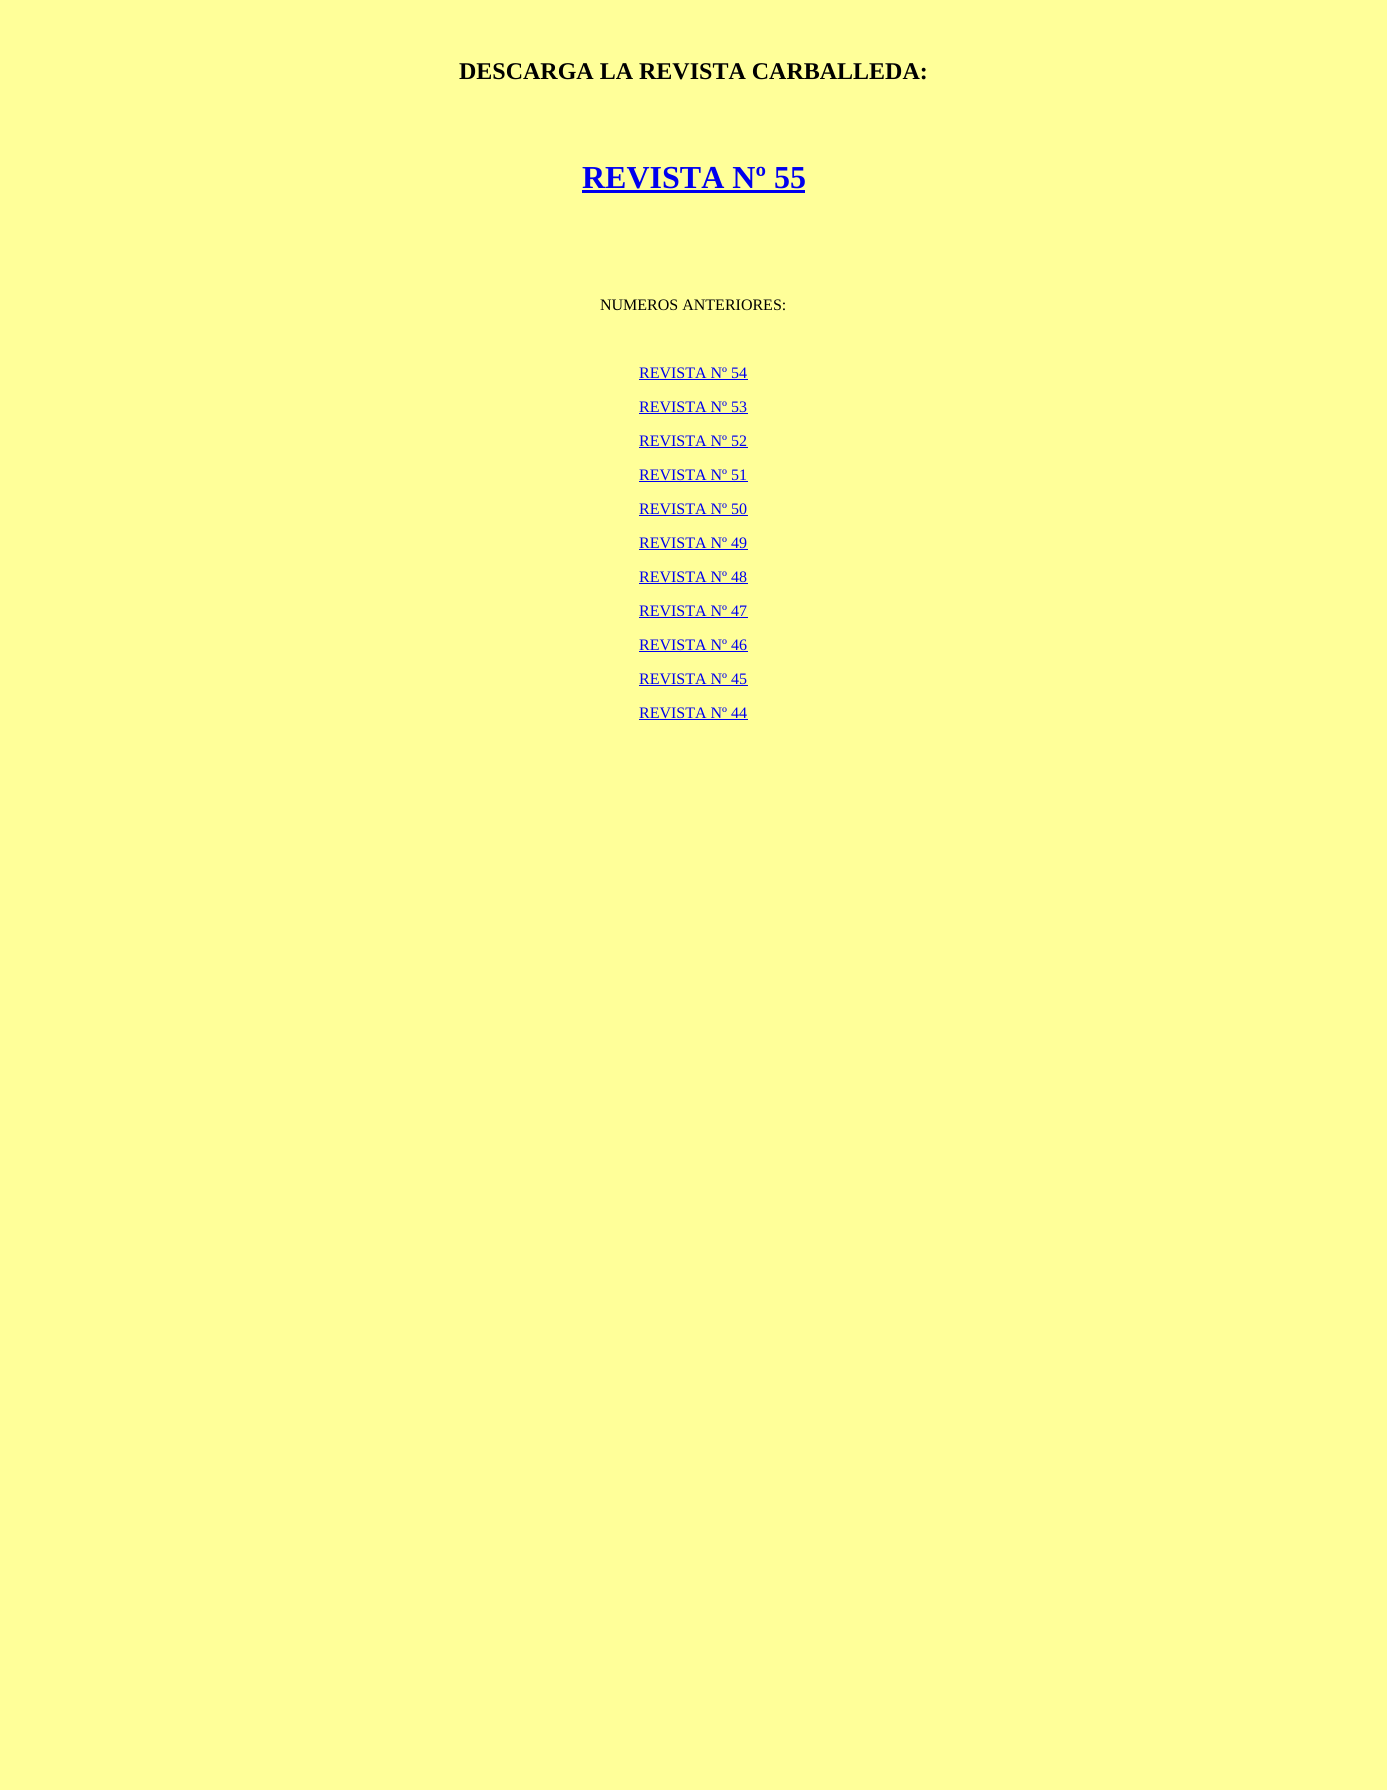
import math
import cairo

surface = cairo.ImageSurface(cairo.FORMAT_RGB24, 1387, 1790)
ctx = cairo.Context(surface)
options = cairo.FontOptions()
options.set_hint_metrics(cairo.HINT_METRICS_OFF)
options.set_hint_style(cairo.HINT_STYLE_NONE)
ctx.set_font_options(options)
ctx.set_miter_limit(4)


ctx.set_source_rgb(1, 1, 0.6)
ctx.paint()
ctx.select_font_face("Liberation Serif", cairo.FONT_SLANT_NORMAL, cairo.FONT_WEIGHT_BOLD)
ctx.set_font_size(24)
ctx.set_source_rgb(0, 0, 0)
ctx.move_to(459, 79)
ctx.show_text("DESCARGA LA REVISTA CARBALLEDA:")
ctx.set_font_size(32)
ctx.set_source_rgb(0, 0, 0.933)
ctx.move_to(582, 188)
ctx.show_text("REVISTA Nº 55")
ctx.rectangle(582, 190, 223, 3)
ctx.fill()
ctx.select_font_face("Liberation Serif")
ctx.set_font_size(16)
ctx.set_source_rgb(0, 0, 0)
ctx.move_to(600, 310)
ctx.show_text("NUMEROS ANTERIORES:")
ctx.set_source_rgb(0, 0, 0.933)
ctx.move_to(639, 378)
ctx.show_text("REVISTA Nº 54")
ctx.rectangle(639, 379, 109, 1)
ctx.fill()
ctx.move_to(639, 412)
ctx.show_text("REVISTA Nº 53")
ctx.rectangle(639, 413, 109, 1)
ctx.fill()
ctx.move_to(639, 446)
ctx.show_text("REVISTA Nº 52")
ctx.rectangle(639, 447, 109, 1)
ctx.fill()
ctx.move_to(639, 480)
ctx.show_text("REVISTA Nº 51")
ctx.rectangle(639, 481, 109, 1)
ctx.fill()
ctx.move_to(639, 514)
ctx.show_text("REVISTA Nº 50")
ctx.rectangle(639, 515, 109, 1)
ctx.fill()
ctx.move_to(639, 548)
ctx.show_text("REVISTA Nº 49")
ctx.rectangle(639, 549, 109, 1)
ctx.fill()
ctx.move_to(639, 582)
ctx.show_text("REVISTA Nº 48")
ctx.rectangle(639, 583, 109, 1)
ctx.fill()
ctx.move_to(639, 616)
ctx.show_text("REVISTA Nº 47")
ctx.rectangle(639, 617, 109, 1)
ctx.fill()
ctx.move_to(639, 650)
ctx.show_text("REVISTA Nº 46")
ctx.rectangle(639, 651, 109, 1)
ctx.fill()
ctx.move_to(639, 684)
ctx.show_text("REVISTA Nº 45")
ctx.rectangle(639, 685, 109, 1)
ctx.fill()
ctx.move_to(639, 718)
ctx.show_text("REVISTA Nº 44")
ctx.rectangle(639, 719, 109, 1)
ctx.fill()
surface.write_to_png("page.png")
